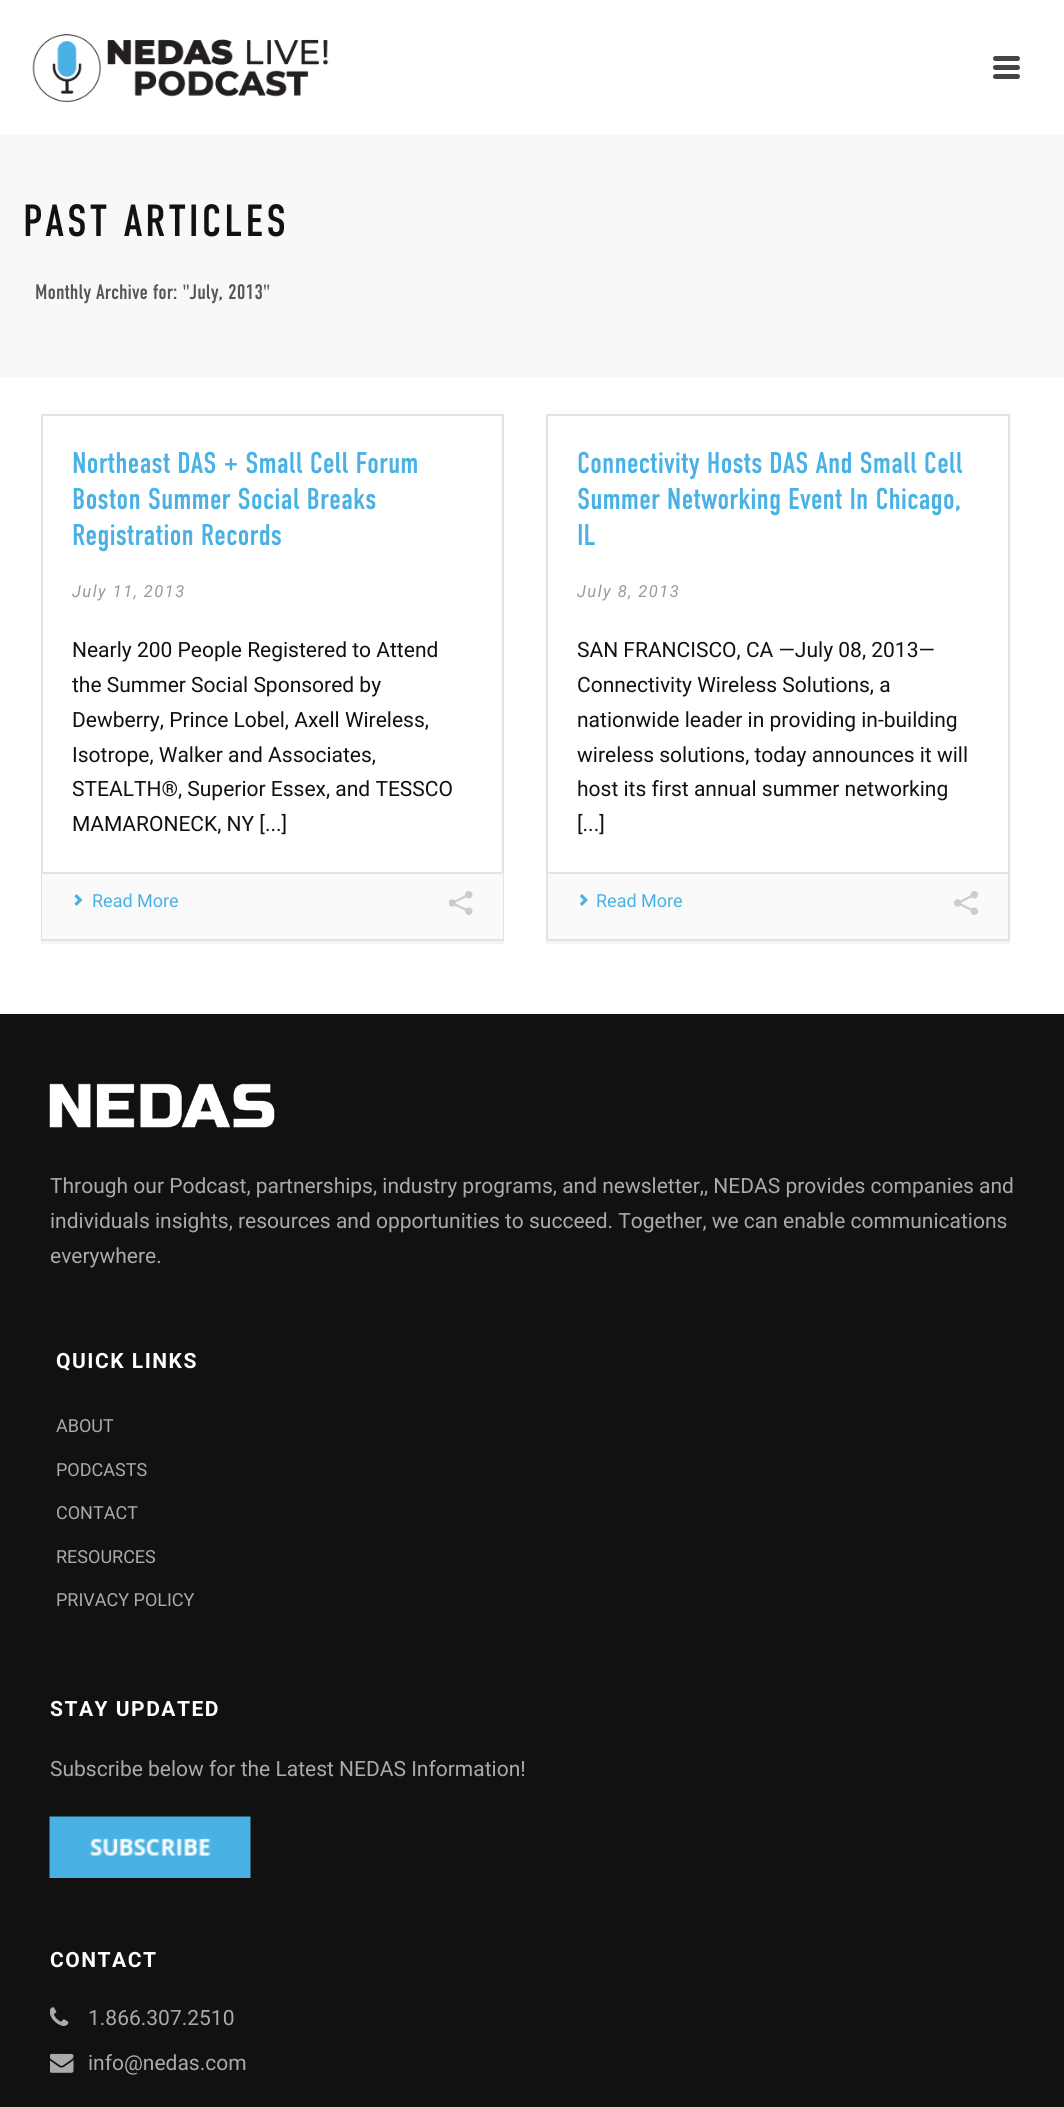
import math
import cairo

surface = cairo.ImageSurface(cairo.FORMAT_RGB24, 1064, 2107)
ctx = cairo.Context(surface)
options = cairo.FontOptions()
options.set_hint_metrics(cairo.HINT_METRICS_OFF)
options.set_hint_style(cairo.HINT_STYLE_NONE)
ctx.set_font_options(options)
ctx.set_miter_limit(4)


def spaced_text(x, y, s, letter, word):
    ctx.move_to(x, y)
    for ch in s:
        ctx.show_text(ch)
        ctx.rel_move_to(letter + word * (ch == ' '), 0)


def round_rect(x, y, w, h, r):
    ctx.new_sub_path()
    for i, (u, v) in enumerate([(x + w - r, y + h - r), (x + r, y + h - r), (x + r, y + r), (x + w - r, y + r)]):
        ctx.arc(u, v, r, i * math.pi / 2, (i + 1) * math.pi / 2)
    ctx.close_path()


def shadow(x, y, w, h, r, blur, alpha):
    ctx.push_group_with_content(cairo.CONTENT_ALPHA)
    ctx.set_operator(cairo.OPERATOR_SOURCE)
    for i in range(15, -16, -2):
        e = blur * i / 6
        if min(w, h) + 2 * e > 0:
            ctx.set_source_rgba(0, 0, 0, alpha * math.erfc((i - 1) / 8.5) / 2)
            round_rect(x - e, y - e, w + 2 * e, h + 2 * e, max(0, min(r + e + blur * .6, min(w, h) / 2 + e)))
            ctx.fill()
    ctx.mask(ctx.pop_group())


def picture(path, x, y, w, h):
    ctx.save()
    ctx.set_source_surface(cairo.ImageSurface.create_from_png(path), x, y)
    ctx.rectangle(x, y, w, h)
    ctx.fill()
    ctx.restore()


ctx.set_source_rgb(1, 1, 1)
ctx.paint()
ctx.set_source_rgb(0.969, 0.969, 0.969)
ctx.rectangle(0, 135, 1064, 242)
ctx.fill()
picture("img1.png", 32, 34, 297, 69)
ctx.set_source_rgb(0.267, 0.267, 0.267)
round_rect(993, 56, 27, 5, 2.5)
ctx.fill()
round_rect(993, 65, 27, 5, 2.5)
ctx.fill()
round_rect(993, 74, 27, 5, 2.5)
ctx.fill()
ctx.select_font_face("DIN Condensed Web")
ctx.set_font_size(45)
ctx.set_source_rgb(0.067, 0.067, 0.067)
spaced_text(23, 236, "PAST ARTICLES", 3, 0)
ctx.set_font_size(21)
ctx.set_source_rgb(0.337, 0.337, 0.337)
ctx.move_to(35, 299)
ctx.show_text("Monthly Archive for: \"July, 2013\"")
ctx.set_source_rgb(0, 0, 0)
shadow(41, 417, 463, 527, 0, 1, 0.05)
ctx.set_source_rgb(1, 1, 1)
ctx.rectangle(43, 416, 459, 456)
ctx.fill()
ctx.rectangle(42, 415, 461, 525)
ctx.set_source_rgb(0.89, 0.89, 0.89)
ctx.stroke()
ctx.set_font_size(30)
ctx.set_source_rgb(0.29, 0.694, 0.894)
ctx.move_to(72, 473)
ctx.show_text("Northeast DAS + Small Cell Forum")
ctx.move_to(72, 509)
ctx.show_text("Boston Summer Social Breaks")
ctx.move_to(72, 545)
ctx.show_text("Registration Records")
ctx.select_font_face("Roboto", cairo.FONT_SLANT_ITALIC)
ctx.set_font_size(16.5)
ctx.set_source_rgb(0.6, 0.6, 0.6)
spaced_text(72, 597, "July 11, 2013", 1.5, 0)
ctx.select_font_face("Roboto")
ctx.set_font_size(21)
ctx.set_source_rgb(0.067, 0.067, 0.067)
ctx.move_to(72, 657)
ctx.show_text("Nearly 200 People Registered to Attend")
ctx.move_to(72, 692)
ctx.show_text("the Summer Social Sponsored by")
ctx.move_to(72, 727)
ctx.show_text("Dewberry, Prince Lobel, Axell Wireless,")
ctx.move_to(72, 762)
ctx.show_text("Isotrope, Walker and Associates,")
ctx.move_to(72, 796)
ctx.show_text("STEALTH®, Superior Essex, and TESSCO")
ctx.move_to(72, 831)
ctx.show_text("MAMARONECK, NY [...]")
ctx.set_source_rgb(0.98, 0.98, 0.98)
ctx.rectangle(42, 874, 461, 65)
ctx.fill()
ctx.set_source_rgb(0.89, 0.89, 0.89)
ctx.rectangle(42, 872, 461, 2)
ctx.fill()
picture("img2.png", 74, 894, 9, 12)
ctx.set_font_size(18)
ctx.set_source_rgb(0.29, 0.694, 0.894)
ctx.move_to(92, 907)
ctx.show_text("Read More")
picture("img3.png", 449, 891, 24, 24)
ctx.set_source_rgb(0, 0, 0)
shadow(546, 417, 464, 527, 0, 1, 0.05)
ctx.set_source_rgb(1, 1, 1)
ctx.rectangle(548, 416, 460, 456)
ctx.fill()
ctx.rectangle(547, 415, 462, 525)
ctx.set_source_rgb(0.89, 0.89, 0.89)
ctx.stroke()
ctx.select_font_face("DIN Condensed Web")
ctx.set_font_size(30)
ctx.set_source_rgb(0.29, 0.694, 0.894)
ctx.move_to(577, 473)
ctx.show_text("Connectivity Hosts DAS And Small Cell")
ctx.move_to(577, 509)
ctx.show_text("Summer Networking Event In Chicago,")
ctx.move_to(577, 545)
ctx.show_text("IL")
ctx.select_font_face("Roboto", cairo.FONT_SLANT_ITALIC)
ctx.set_font_size(16.5)
ctx.set_source_rgb(0.6, 0.6, 0.6)
spaced_text(577, 597, "July 8, 2013", 1.5, 0)
ctx.select_font_face("Roboto")
ctx.set_font_size(21)
ctx.set_source_rgb(0.067, 0.067, 0.067)
ctx.move_to(577, 657)
ctx.show_text("SAN FRANCISCO, CA —July 08, 2013—")
ctx.move_to(577, 692)
ctx.show_text("Connectivity Wireless Solutions, a")
ctx.move_to(577, 727)
ctx.show_text("nationwide leader in providing in-building")
ctx.move_to(577, 762)
ctx.show_text("wireless solutions, today announces it will")
ctx.move_to(577, 796)
ctx.show_text("host its first annual summer networking")
ctx.move_to(577, 831)
ctx.show_text("[...]")
ctx.set_source_rgb(0.98, 0.98, 0.98)
ctx.rectangle(548, 874, 460, 65)
ctx.fill()
ctx.set_source_rgb(0.89, 0.89, 0.89)
ctx.rectangle(548, 872, 460, 2)
ctx.fill()
picture("img4.png", 579, 894, 9, 12)
ctx.set_font_size(18)
ctx.set_source_rgb(0.29, 0.694, 0.894)
ctx.move_to(596, 907)
ctx.show_text("Read More")
picture("img5.png", 954, 891, 24, 24)
ctx.set_source_rgb(0.067, 0.067, 0.067)
ctx.rectangle(0, 1014, 1064, 1093)
ctx.fill()
picture("img6.png", 49, 1083, 226, 45)
ctx.set_font_size(21)
ctx.set_source_rgb(0.667, 0.667, 0.667)
ctx.move_to(50, 1193)
ctx.show_text("Through our Podcast, partnerships, industry programs, and newsletter,, NEDAS provides companies and")
ctx.move_to(50, 1228)
ctx.show_text("individuals insights, resources and opportunities to succeed. Together, we can enable communications")
ctx.move_to(50, 1263)
ctx.show_text("everywhere.")
ctx.select_font_face("Roboto", cairo.FONT_SLANT_NORMAL, cairo.FONT_WEIGHT_BOLD)
ctx.set_source_rgb(1, 1, 1)
spaced_text(56, 1368, "QUICK LINKS", 1.5, 0)
ctx.select_font_face("Roboto")
ctx.set_font_size(18)
ctx.set_source_rgb(0.667, 0.667, 0.667)
ctx.move_to(56, 1432)
ctx.show_text("ABOUT")
ctx.move_to(56, 1476)
ctx.show_text("PODCASTS")
ctx.move_to(56, 1519)
ctx.show_text("CONTACT")
ctx.move_to(56, 1563)
ctx.show_text("RESOURCES")
ctx.move_to(56, 1606)
ctx.show_text("PRIVACY POLICY")
ctx.select_font_face("Roboto", cairo.FONT_SLANT_NORMAL, cairo.FONT_WEIGHT_BOLD)
ctx.set_font_size(21)
ctx.set_source_rgb(1, 1, 1)
spaced_text(50, 1716, "STAY UPDATED", 1.5, 0)
ctx.select_font_face("Roboto")
ctx.set_source_rgb(0.667, 0.667, 0.667)
ctx.move_to(50, 1776)
ctx.show_text("Subscribe below for the Latest NEDAS Information!")
picture("img7.png", 49, 1816, 202, 62)
ctx.select_font_face("Roboto", cairo.FONT_SLANT_NORMAL, cairo.FONT_WEIGHT_BOLD)
ctx.set_source_rgb(1, 1, 1)
spaced_text(50, 1967, "CONTACT", 1.5, 0)
picture("img8.png", 50, 2007, 19, 20)
ctx.select_font_face("Roboto")
ctx.set_source_rgb(0.667, 0.667, 0.667)
ctx.move_to(88, 2025)
ctx.show_text("1.866.307.2510")
picture("img9.png", 50, 2053, 24, 20)
ctx.move_to(88, 2070)
ctx.show_text("info@nedas.com")
surface.write_to_png("page.png")
